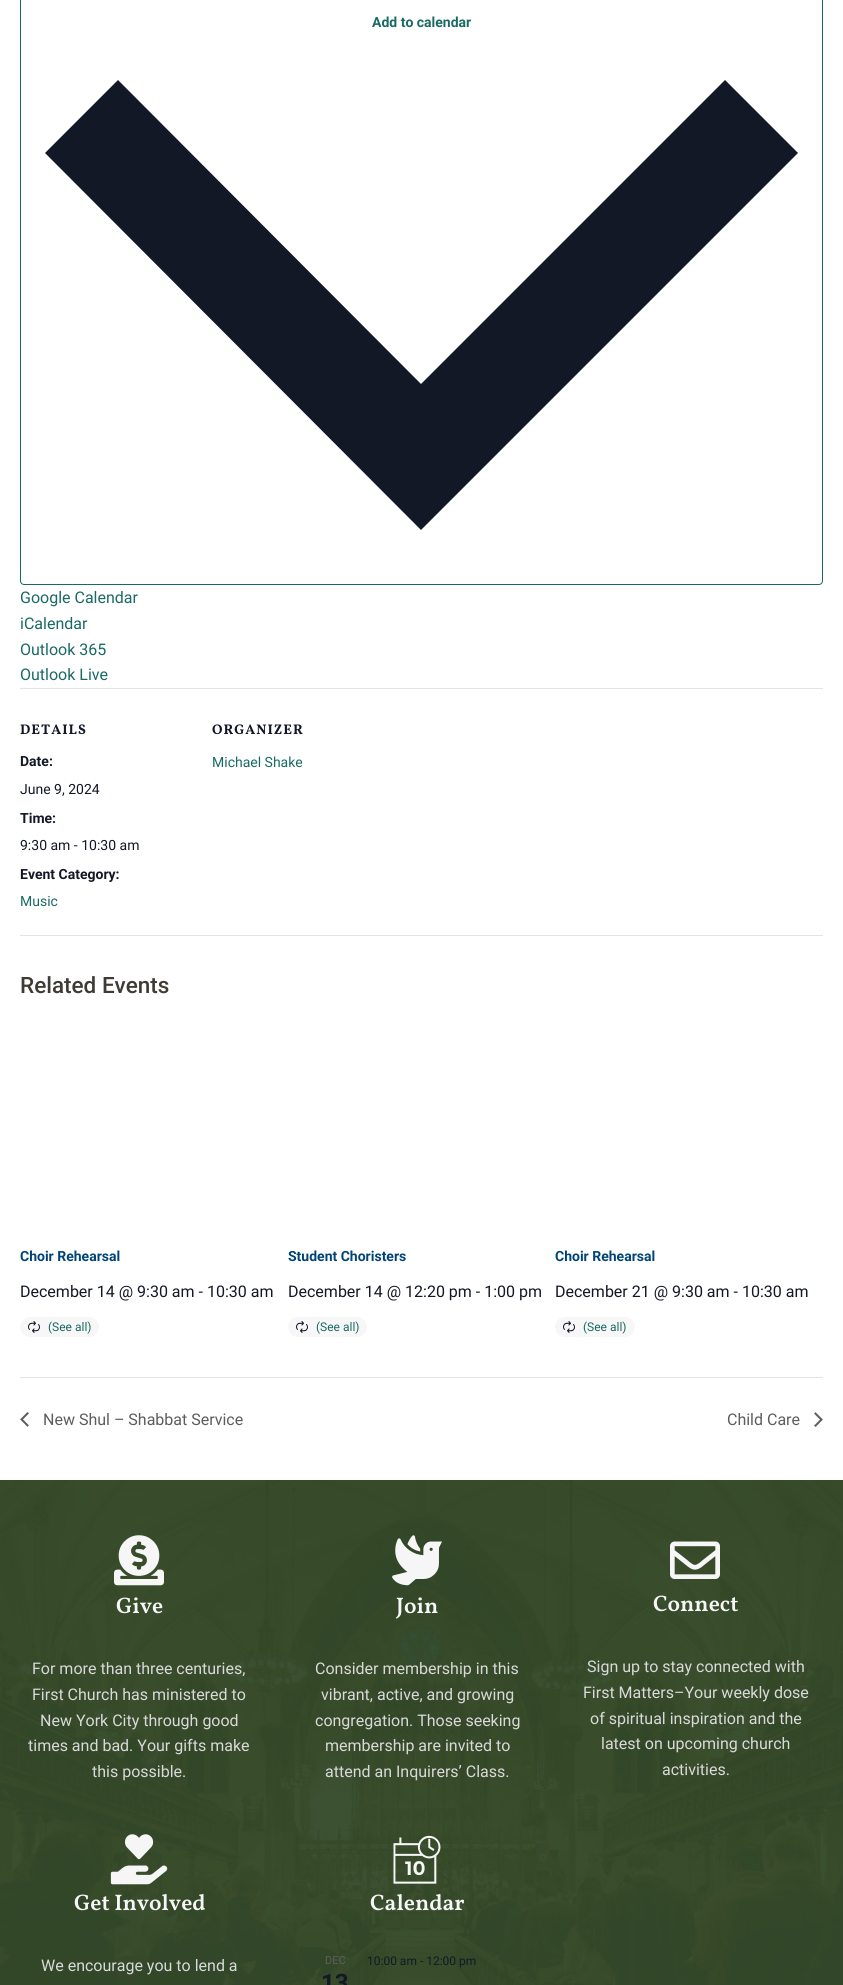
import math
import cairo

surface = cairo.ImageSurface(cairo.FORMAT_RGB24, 843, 1985)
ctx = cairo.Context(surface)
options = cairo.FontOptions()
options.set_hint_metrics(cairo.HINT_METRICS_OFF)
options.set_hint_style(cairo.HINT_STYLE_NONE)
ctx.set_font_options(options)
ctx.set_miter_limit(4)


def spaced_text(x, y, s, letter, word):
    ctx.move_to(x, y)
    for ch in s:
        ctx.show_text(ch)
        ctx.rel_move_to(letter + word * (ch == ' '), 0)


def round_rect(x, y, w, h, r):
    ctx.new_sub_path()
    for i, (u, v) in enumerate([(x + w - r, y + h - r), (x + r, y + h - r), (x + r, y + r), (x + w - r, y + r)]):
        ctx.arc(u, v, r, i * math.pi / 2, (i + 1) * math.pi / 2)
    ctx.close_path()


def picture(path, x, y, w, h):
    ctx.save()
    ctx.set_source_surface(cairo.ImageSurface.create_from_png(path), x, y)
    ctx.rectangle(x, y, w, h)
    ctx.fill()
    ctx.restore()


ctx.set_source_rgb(1, 1, 1)
ctx.paint()
round_rect(20.5, -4.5, 802, 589, 3.5)
ctx.set_source_rgb(0.098, 0.416, 0.392)
ctx.set_line_width(1)
ctx.stroke()
ctx.select_font_face("Roboto", cairo.FONT_SLANT_NORMAL, cairo.FONT_WEIGHT_BOLD)
ctx.set_font_size(14)
ctx.move_to(372, 27)
ctx.show_text("Add to calendar")
ctx.set_source_rgb(0.078, 0.094, 0.153)
ctx.set_fill_rule(cairo.FILL_RULE_EVEN_ODD)
ctx.new_path()
ctx.move_to(118, 80)
ctx.line_to(421, 384)
ctx.line_to(725, 80)
ctx.line_to(798, 153)
ctx.line_to(421, 530)
ctx.line_to(45, 153)
ctx.close_path()
ctx.fill()
ctx.select_font_face("Roboto")
ctx.set_font_size(16)
ctx.set_source_rgb(0.098, 0.416, 0.392)
ctx.move_to(20, 603)
ctx.show_text("Google Calendar")
ctx.move_to(20, 629)
ctx.show_text("iCalendar")
ctx.move_to(20, 655)
ctx.show_text("Outlook 365")
ctx.move_to(20, 680)
ctx.show_text("Outlook Live")
ctx.set_source_rgb(0.894, 0.894, 0.894)
ctx.rectangle(20, 688, 803, 1)
ctx.fill()
ctx.select_font_face("Vollkorn", cairo.FONT_SLANT_NORMAL, cairo.FONT_WEIGHT_BOLD)
ctx.set_font_size(14)
ctx.set_source_rgb(0.078, 0.094, 0.153)
spaced_text(20, 734, "DETAILS", 1, 0)
ctx.select_font_face("Roboto", cairo.FONT_SLANT_NORMAL, cairo.FONT_WEIGHT_BOLD)
ctx.move_to(20, 766)
ctx.show_text("Date:")
ctx.select_font_face("Roboto")
ctx.move_to(20, 794)
ctx.show_text("June 9, 2024")
ctx.select_font_face("Roboto", cairo.FONT_SLANT_NORMAL, cairo.FONT_WEIGHT_BOLD)
ctx.move_to(20, 823)
ctx.show_text("Time:")
ctx.select_font_face("Roboto")
ctx.move_to(20, 850)
ctx.show_text("9:30 am - 10:30 am")
ctx.select_font_face("Roboto", cairo.FONT_SLANT_NORMAL, cairo.FONT_WEIGHT_BOLD)
ctx.move_to(20, 879)
ctx.show_text("Event Category:")
ctx.select_font_face("Roboto")
ctx.set_source_rgb(0.098, 0.416, 0.392)
ctx.move_to(20, 906)
ctx.show_text("Music")
ctx.select_font_face("Vollkorn", cairo.FONT_SLANT_NORMAL, cairo.FONT_WEIGHT_BOLD)
ctx.set_source_rgb(0.078, 0.094, 0.153)
spaced_text(212, 734, "ORGANIZER", 1, 0)
ctx.select_font_face("Roboto")
ctx.set_source_rgb(0.098, 0.416, 0.392)
ctx.move_to(212, 767)
ctx.show_text("Michael Shake")
ctx.set_source_rgb(0.894, 0.894, 0.894)
ctx.rectangle(20, 935, 803, 1)
ctx.fill()
ctx.select_font_face("Roboto Medium")
ctx.set_font_size(22.5)
ctx.set_source_rgb(0.243, 0.227, 0.204)
ctx.move_to(20, 993)
ctx.show_text("Related Events")
ctx.select_font_face("Roboto", cairo.FONT_SLANT_NORMAL, cairo.FONT_WEIGHT_BOLD)
ctx.set_font_size(14)
ctx.set_source_rgb(0, 0.267, 0.467)
ctx.move_to(20, 1261)
ctx.show_text("Choir Rehearsal")
ctx.select_font_face("Roboto")
ctx.set_font_size(16)
ctx.set_source_rgb(0.078, 0.094, 0.153)
ctx.move_to(20, 1297)
ctx.show_text("December 14 @ 9:30 am - 10:30 am")
ctx.set_source_rgb(0.969, 0.965, 0.965)
round_rect(20, 1317, 79, 20, 10)
ctx.fill()
picture("img1.png", 28, 1321, 12, 12)
ctx.set_font_size(12)
ctx.set_source_rgb(0.098, 0.416, 0.392)
ctx.move_to(48, 1331)
ctx.show_text("(See all)")
ctx.select_font_face("Roboto", cairo.FONT_SLANT_NORMAL, cairo.FONT_WEIGHT_BOLD)
ctx.set_font_size(14)
ctx.set_source_rgb(0, 0.267, 0.467)
ctx.move_to(288, 1261)
ctx.show_text("Student Choristers")
ctx.select_font_face("Roboto")
ctx.set_font_size(16)
ctx.set_source_rgb(0.078, 0.094, 0.153)
ctx.move_to(288, 1297)
ctx.show_text("December 14 @ 12:20 pm - 1:00 pm")
ctx.set_source_rgb(0.969, 0.965, 0.965)
round_rect(288, 1317, 79, 20, 10)
ctx.fill()
picture("img1.png", 296, 1321, 12, 12)
ctx.set_font_size(12)
ctx.set_source_rgb(0.098, 0.416, 0.392)
ctx.move_to(316, 1331)
ctx.show_text("(See all)")
ctx.select_font_face("Roboto", cairo.FONT_SLANT_NORMAL, cairo.FONT_WEIGHT_BOLD)
ctx.set_font_size(14)
ctx.set_source_rgb(0, 0.267, 0.467)
ctx.move_to(555, 1261)
ctx.show_text("Choir Rehearsal")
ctx.select_font_face("Roboto")
ctx.set_font_size(16)
ctx.set_source_rgb(0.078, 0.094, 0.153)
ctx.move_to(555, 1297)
ctx.show_text("December 21 @ 9:30 am - 10:30 am")
ctx.set_source_rgb(0.969, 0.965, 0.965)
round_rect(555, 1317, 80, 20, 10)
ctx.fill()
picture("img1.png", 563, 1321, 12, 12)
ctx.set_font_size(12)
ctx.set_source_rgb(0.098, 0.416, 0.392)
ctx.move_to(583, 1331)
ctx.show_text("(See all)")
ctx.set_source_rgb(0.894, 0.894, 0.894)
ctx.rectangle(20, 1377, 803, 1)
ctx.fill()
picture("img2.png", 20, 1412, 9, 15)
ctx.set_font_size(16)
ctx.set_source_rgb(0.365, 0.365, 0.365)
ctx.move_to(43, 1425)
ctx.show_text("New Shul – Shabbat Service")
ctx.move_to(727, 1425)
ctx.show_text("Child Care")
picture("img3.png", 814, 1412, 9, 15)
picture("img4.png", 0, 1480, 843, 505)
picture("img5.png", 114, 1535, 50, 51)
ctx.select_font_face("Vollkorn SemiBold")
ctx.set_font_size(22.5)
ctx.set_source_rgb(0.965, 0.965, 0.965)
ctx.move_to(116, 1613)
ctx.show_text("Give")
ctx.select_font_face("Roboto")
ctx.set_font_size(16)
ctx.set_source_rgb(0.851, 0.851, 0.851)
ctx.move_to(32, 1674)
ctx.show_text("For more than three centuries,")
ctx.move_to(32, 1700)
ctx.show_text("First Church has ministered to")
ctx.move_to(40, 1726)
ctx.show_text("New York City through good")
ctx.move_to(28, 1751)
ctx.show_text("times and bad. Your gifts make")
ctx.move_to(92, 1777)
ctx.show_text("this possible.")
picture("img6.png", 392, 1535, 50, 51)
ctx.select_font_face("Vollkorn SemiBold")
ctx.set_font_size(22.5)
ctx.set_source_rgb(0.965, 0.965, 0.965)
ctx.move_to(396, 1613)
ctx.show_text("Join")
ctx.select_font_face("Roboto")
ctx.set_font_size(16)
ctx.set_source_rgb(0.851, 0.851, 0.851)
ctx.move_to(315, 1674)
ctx.show_text("Consider membership in this")
ctx.move_to(321, 1700)
ctx.show_text("vibrant, active, and growing")
ctx.move_to(315, 1726)
ctx.show_text("congregation. Those seeking")
ctx.move_to(325, 1751)
ctx.show_text("membership are invited to")
ctx.move_to(325, 1777)
ctx.show_text("attend an Inquirers’ Class.")
picture("img7.png", 670, 1541, 50, 38)
ctx.select_font_face("Vollkorn SemiBold")
ctx.set_font_size(22.5)
ctx.set_source_rgb(0.965, 0.965, 0.965)
ctx.move_to(653, 1611)
ctx.show_text("Connect")
ctx.select_font_face("Roboto")
ctx.set_font_size(16)
ctx.set_source_rgb(0.851, 0.851, 0.851)
ctx.move_to(587, 1672)
ctx.show_text("Sign up to stay connected with")
ctx.move_to(583, 1698)
ctx.show_text("First Matters–Your weekly dose")
ctx.move_to(590, 1724)
ctx.show_text("of spiritual inspiration and the")
ctx.move_to(601, 1749)
ctx.show_text("latest on upcoming church")
ctx.move_to(662, 1775)
ctx.show_text("activities.")
picture("img8.png", 110, 1834, 58, 51)
ctx.select_font_face("Vollkorn SemiBold")
ctx.set_font_size(22.5)
ctx.set_source_rgb(0.965, 0.965, 0.965)
ctx.move_to(74, 1910)
ctx.show_text("Get Involved")
ctx.select_font_face("Roboto")
ctx.set_font_size(16)
ctx.set_source_rgb(0.851, 0.851, 0.851)
ctx.move_to(41, 1971)
ctx.show_text("We encourage you to lend a")
picture("img9.png", 393, 1835, 48, 49)
ctx.select_font_face("Vollkorn SemiBold")
ctx.set_font_size(22.5)
ctx.set_source_rgb(0.965, 0.965, 0.965)
ctx.move_to(370, 1910)
ctx.show_text("Calendar")
ctx.select_font_face("Roboto")
ctx.set_font_size(11)
ctx.set_source_rgb(0.365, 0.365, 0.365)
ctx.move_to(325, 1964)
ctx.show_text("DEC")
ctx.select_font_face("Roboto", cairo.FONT_SLANT_NORMAL, cairo.FONT_WEIGHT_BOLD)
ctx.set_font_size(24)
ctx.set_source_rgb(0.078, 0.094, 0.153)
ctx.move_to(321, 1991)
ctx.show_text("13")
ctx.select_font_face("Roboto")
ctx.set_font_size(12)
ctx.move_to(367, 1965)
ctx.show_text("10:00 am - 12:00 pm")
surface.write_to_png("page.png")
